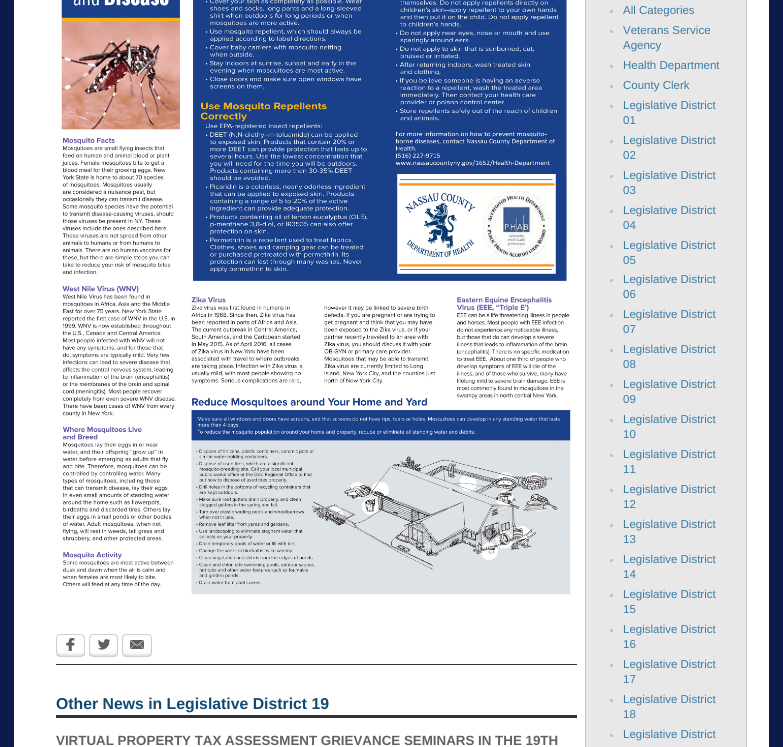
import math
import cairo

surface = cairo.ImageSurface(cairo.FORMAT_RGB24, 783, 747)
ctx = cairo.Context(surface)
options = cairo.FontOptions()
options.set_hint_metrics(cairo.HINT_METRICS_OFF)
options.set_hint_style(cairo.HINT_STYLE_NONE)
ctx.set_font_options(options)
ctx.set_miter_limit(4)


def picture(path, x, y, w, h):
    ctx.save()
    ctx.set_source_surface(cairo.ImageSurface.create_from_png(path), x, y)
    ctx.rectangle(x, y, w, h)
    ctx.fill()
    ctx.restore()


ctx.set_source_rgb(0.047, 0.106, 0.29)
ctx.paint()
ctx.set_source_rgb(1, 1, 1)
ctx.rectangle(14, 0, 755, 747)
ctx.fill()
picture("img1.png", 61, 0, 510, 595)
picture("img2.png", 81, 634, 4, 23)
picture("img3.png", 56, 634, 25, 23)
picture("img4.png", 66, 638, 9, 13)
picture("img2.png", 114, 634, 4, 23)
picture("img3.png", 89, 634, 25, 23)
picture("img5.png", 98, 639, 12, 11)
picture("img2.png", 148, 634, 4, 23)
picture("img6.png", 122, 634, 26, 23)
picture("img7.png", 130, 640, 14, 9)
ctx.set_source_rgb(0.2, 0.2, 0.2)
ctx.rectangle(56, 664, 521, 1)
ctx.fill()
ctx.rectangle(56, 715, 521, 3)
ctx.fill()
ctx.select_font_face("Liberation Sans", cairo.FONT_SLANT_NORMAL, cairo.FONT_WEIGHT_BOLD)
ctx.set_font_size(15.8)
ctx.set_source_rgb(0.063, 0.29, 0.451)
ctx.move_to(56, 709)
ctx.show_text("Other News in Legislative District 19")
ctx.set_font_size(13.35)
ctx.set_source_rgb(0.384, 0.38, 0.38)
ctx.move_to(56, 745)
ctx.show_text("VIRTUAL PROPERTY TAX ASSESSMENT GRIEVANCE SEMINARS IN THE 19TH")
ctx.set_source_rgb(0.914, 0.91, 0.91)
ctx.rectangle(585.5, -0.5, 161, 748)
ctx.fill_preserve()
ctx.set_source_rgb(0.773, 0.769, 0.769)
ctx.set_line_width(1)
ctx.stroke()
ctx.rectangle(610, 10, 3, 3)
ctx.fill()
ctx.select_font_face("Liberation Sans")
ctx.set_font_size(11.5)
ctx.set_source_rgb(0.227, 0.482, 0.647)
ctx.move_to(623, 14)
ctx.show_text("All Categories")
ctx.set_source_rgb(0.773, 0.769, 0.769)
ctx.rectangle(610, 30, 3, 3)
ctx.fill()
ctx.set_source_rgb(0.227, 0.482, 0.647)
ctx.move_to(623, 34)
ctx.show_text("Veterans Service")
ctx.move_to(623, 49)
ctx.show_text("Agency")
ctx.set_source_rgb(0.773, 0.769, 0.769)
ctx.rectangle(610, 65, 3, 3)
ctx.fill()
ctx.set_source_rgb(0.227, 0.482, 0.647)
ctx.move_to(623, 69)
ctx.show_text("Health Department")
ctx.set_source_rgb(0.773, 0.769, 0.769)
ctx.rectangle(610, 85, 3, 3)
ctx.fill()
ctx.set_source_rgb(0.227, 0.482, 0.647)
ctx.move_to(623, 89)
ctx.show_text("County Clerk")
ctx.set_source_rgb(0.773, 0.769, 0.769)
ctx.rectangle(610, 105, 3, 3)
ctx.fill()
ctx.set_source_rgb(0.227, 0.482, 0.647)
ctx.move_to(623, 109)
ctx.show_text("Legislative District")
ctx.move_to(623, 124)
ctx.show_text("01")
ctx.set_source_rgb(0.773, 0.769, 0.769)
ctx.rectangle(610, 140, 3, 3)
ctx.fill()
ctx.set_source_rgb(0.227, 0.482, 0.647)
ctx.move_to(623, 144)
ctx.show_text("Legislative District")
ctx.move_to(623, 159)
ctx.show_text("02")
ctx.set_source_rgb(0.773, 0.769, 0.769)
ctx.rectangle(610, 175, 3, 3)
ctx.fill()
ctx.set_source_rgb(0.227, 0.482, 0.647)
ctx.move_to(623, 179)
ctx.show_text("Legislative District")
ctx.move_to(623, 194)
ctx.show_text("03")
ctx.set_source_rgb(0.773, 0.769, 0.769)
ctx.rectangle(610, 210, 3, 3)
ctx.fill()
ctx.set_source_rgb(0.227, 0.482, 0.647)
ctx.move_to(623, 214)
ctx.show_text("Legislative District")
ctx.move_to(623, 229)
ctx.show_text("04")
ctx.set_source_rgb(0.773, 0.769, 0.769)
ctx.rectangle(610, 245, 3, 3)
ctx.fill()
ctx.set_source_rgb(0.227, 0.482, 0.647)
ctx.move_to(623, 249)
ctx.show_text("Legislative District")
ctx.move_to(623, 264)
ctx.show_text("05")
ctx.set_source_rgb(0.773, 0.769, 0.769)
ctx.rectangle(610, 279, 3, 3)
ctx.fill()
ctx.set_source_rgb(0.227, 0.482, 0.647)
ctx.move_to(623, 283)
ctx.show_text("Legislative District")
ctx.move_to(623, 298)
ctx.show_text("06")
ctx.set_source_rgb(0.773, 0.769, 0.769)
ctx.rectangle(610, 314, 3, 3)
ctx.fill()
ctx.set_source_rgb(0.227, 0.482, 0.647)
ctx.move_to(623, 318)
ctx.show_text("Legislative District")
ctx.move_to(623, 333)
ctx.show_text("07")
ctx.set_source_rgb(0.773, 0.769, 0.769)
ctx.rectangle(610, 349, 3, 3)
ctx.fill()
ctx.set_source_rgb(0.227, 0.482, 0.647)
ctx.move_to(623, 353)
ctx.show_text("Legislative District")
ctx.move_to(623, 368)
ctx.show_text("08")
ctx.set_source_rgb(0.773, 0.769, 0.769)
ctx.rectangle(610, 384, 3, 3)
ctx.fill()
ctx.set_source_rgb(0.227, 0.482, 0.647)
ctx.move_to(623, 388)
ctx.show_text("Legislative District")
ctx.move_to(623, 403)
ctx.show_text("09")
ctx.set_source_rgb(0.773, 0.769, 0.769)
ctx.rectangle(610, 419, 3, 3)
ctx.fill()
ctx.set_source_rgb(0.227, 0.482, 0.647)
ctx.move_to(623, 423)
ctx.show_text("Legislative District")
ctx.move_to(623, 438)
ctx.show_text("10")
ctx.set_source_rgb(0.773, 0.769, 0.769)
ctx.rectangle(610, 454, 3, 3)
ctx.fill()
ctx.set_source_rgb(0.227, 0.482, 0.647)
ctx.move_to(623, 458)
ctx.show_text("Legislative District")
ctx.move_to(623, 473)
ctx.show_text("11")
ctx.set_source_rgb(0.773, 0.769, 0.769)
ctx.rectangle(610, 489, 3, 3)
ctx.fill()
ctx.set_source_rgb(0.227, 0.482, 0.647)
ctx.move_to(623, 493)
ctx.show_text("Legislative District")
ctx.move_to(623, 508)
ctx.show_text("12")
ctx.set_source_rgb(0.773, 0.769, 0.769)
ctx.rectangle(610, 524, 3, 3)
ctx.fill()
ctx.set_source_rgb(0.227, 0.482, 0.647)
ctx.move_to(623, 528)
ctx.show_text("Legislative District")
ctx.move_to(623, 543)
ctx.show_text("13")
ctx.set_source_rgb(0.773, 0.769, 0.769)
ctx.rectangle(610, 559, 3, 3)
ctx.fill()
ctx.set_source_rgb(0.227, 0.482, 0.647)
ctx.move_to(623, 563)
ctx.show_text("Legislative District")
ctx.move_to(623, 578)
ctx.show_text("14")
ctx.set_source_rgb(0.773, 0.769, 0.769)
ctx.rectangle(610, 594, 3, 3)
ctx.fill()
ctx.set_source_rgb(0.227, 0.482, 0.647)
ctx.move_to(623, 598)
ctx.show_text("Legislative District")
ctx.move_to(623, 613)
ctx.show_text("15")
ctx.set_source_rgb(0.773, 0.769, 0.769)
ctx.rectangle(610, 629, 3, 3)
ctx.fill()
ctx.set_source_rgb(0.227, 0.482, 0.647)
ctx.move_to(623, 633)
ctx.show_text("Legislative District")
ctx.move_to(623, 648)
ctx.show_text("16")
ctx.set_source_rgb(0.773, 0.769, 0.769)
ctx.rectangle(610, 664, 3, 3)
ctx.fill()
ctx.set_source_rgb(0.227, 0.482, 0.647)
ctx.move_to(623, 668)
ctx.show_text("Legislative District")
ctx.move_to(623, 683)
ctx.show_text("17")
ctx.set_source_rgb(0.773, 0.769, 0.769)
ctx.rectangle(610, 699, 3, 3)
ctx.fill()
ctx.set_source_rgb(0.227, 0.482, 0.647)
ctx.move_to(623, 703)
ctx.show_text("Legislative District")
ctx.move_to(623, 718)
ctx.show_text("18")
ctx.set_source_rgb(0.773, 0.769, 0.769)
ctx.rectangle(610, 734, 3, 3)
ctx.fill()
ctx.set_source_rgb(0.227, 0.482, 0.647)
ctx.move_to(623, 738)
ctx.show_text("Legislative District")
surface.write_to_png("page.png")
